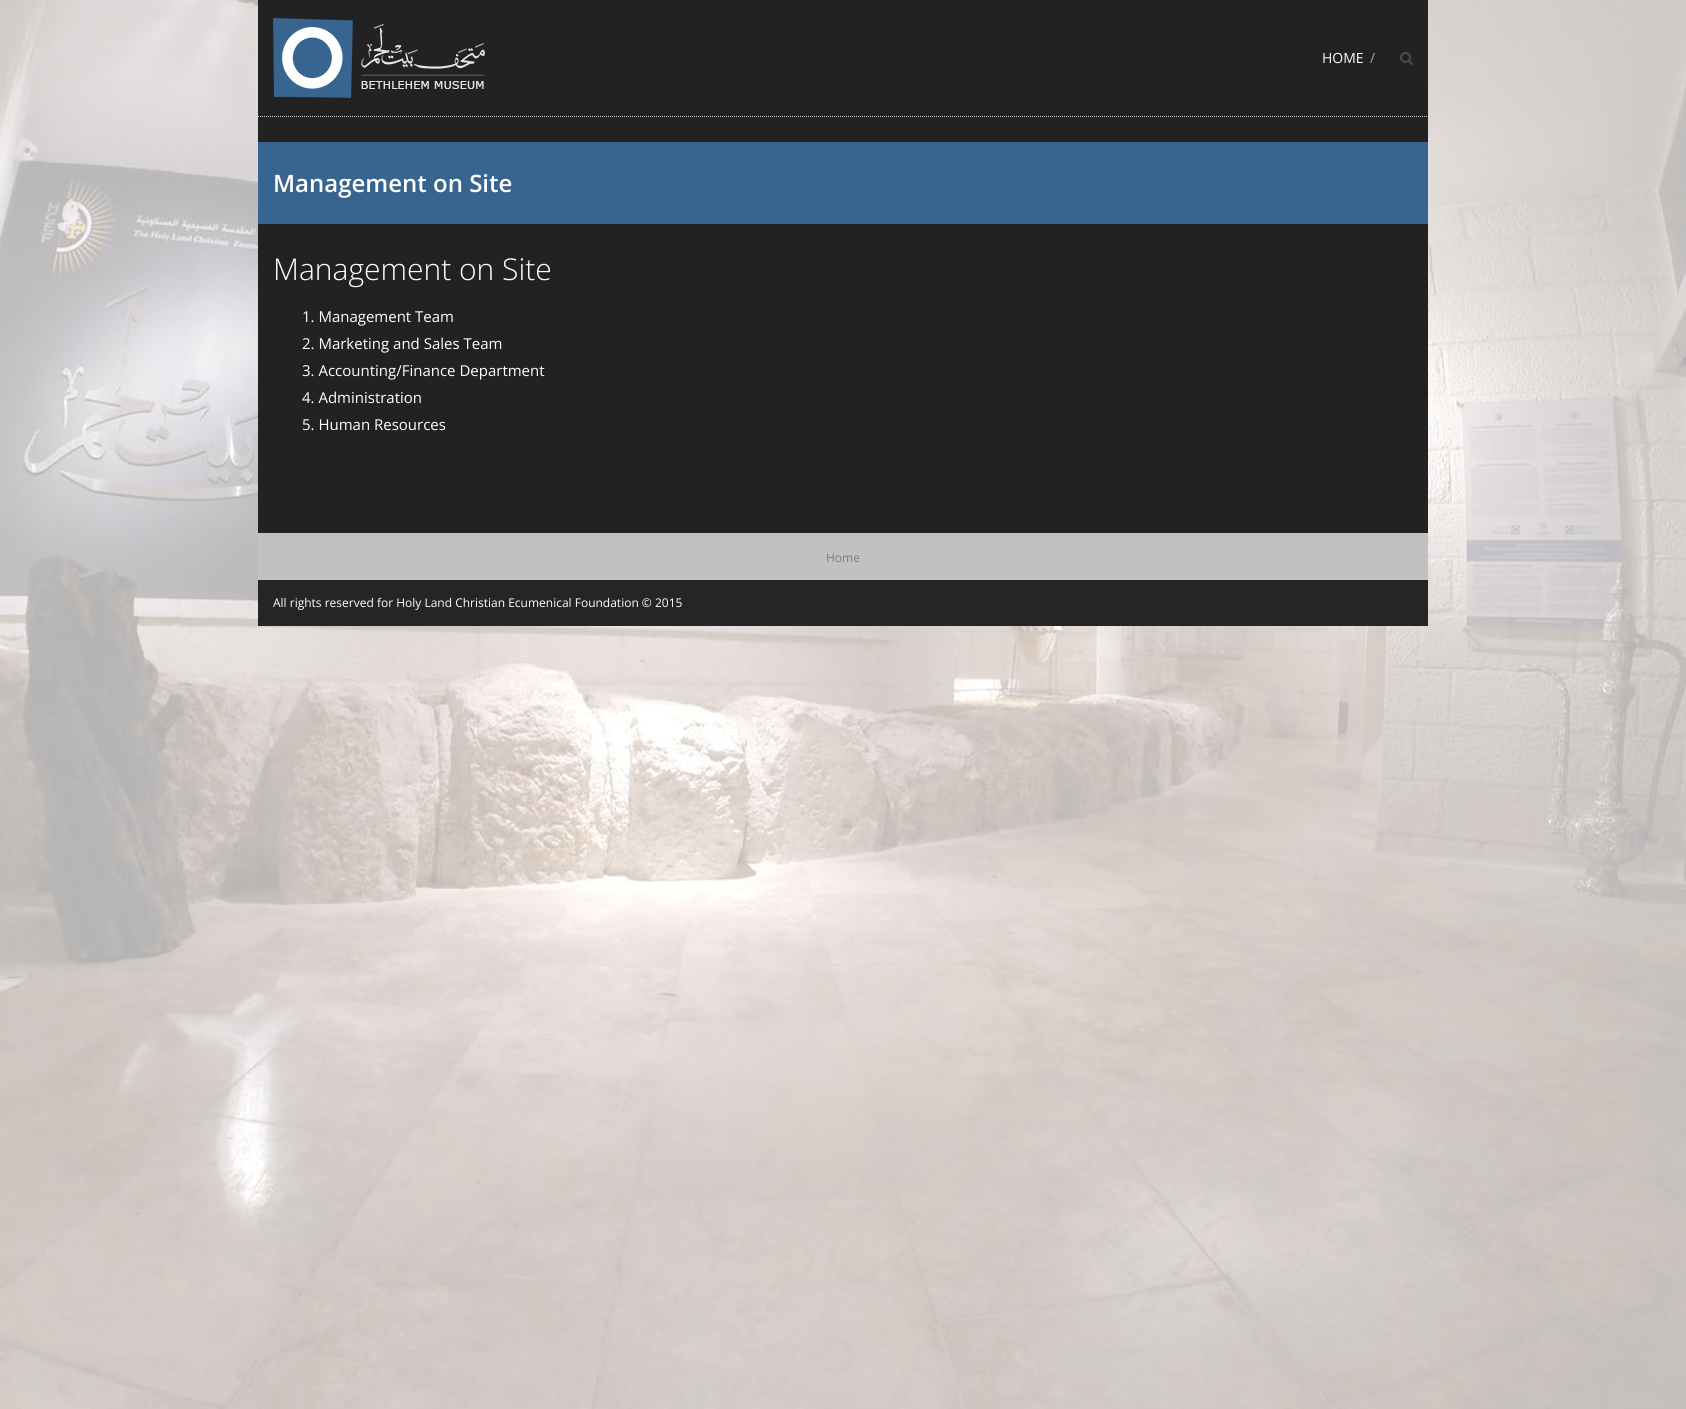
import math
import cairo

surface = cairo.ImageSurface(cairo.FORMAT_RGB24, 1686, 1409)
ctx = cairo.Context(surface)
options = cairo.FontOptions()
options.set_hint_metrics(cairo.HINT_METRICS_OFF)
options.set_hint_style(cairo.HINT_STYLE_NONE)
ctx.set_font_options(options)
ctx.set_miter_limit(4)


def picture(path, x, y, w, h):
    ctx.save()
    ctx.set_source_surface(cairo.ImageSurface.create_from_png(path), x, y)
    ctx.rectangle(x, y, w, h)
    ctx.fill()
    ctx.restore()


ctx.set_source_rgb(1, 1, 1)
ctx.paint()
picture("img1.png", 0, 0, 1686, 1409)
ctx.set_source_rgb(0.133, 0.133, 0.133)
ctx.rectangle(258, 0, 1170, 533)
ctx.fill()
ctx.new_path()
ctx.move_to(258, 116.5)
ctx.line_to(1428, 116.5)
ctx.set_source_rgb(0.804, 0.804, 0.804)
ctx.set_line_width(1)
ctx.set_dash([1, 1])
ctx.stroke()
picture("img2.png", 273, 18, 212, 80)
ctx.select_font_face("Open Sans")
ctx.set_font_size(14)
ctx.set_source_rgb(1, 1, 1)
ctx.move_to(1322, 63)
ctx.show_text("HOME")
ctx.set_source_rgb(0.667, 0.667, 0.667)
ctx.move_to(1370, 63)
ctx.show_text("/")
picture("img3.png", 1400, 52, 13, 13)
ctx.set_source_rgb(0.216, 0.396, 0.561)
ctx.rectangle(258, 142, 1170, 82)
ctx.fill()
ctx.select_font_face("Open Sans SemiBold")
ctx.set_font_size(24)
ctx.set_source_rgb(1, 1, 1)
ctx.move_to(273, 192)
ctx.show_text("Management on Site")
ctx.select_font_face("Open Sans Light")
ctx.set_font_size(30)
ctx.move_to(273, 280)
ctx.show_text("Management on Site")
ctx.select_font_face("Open Sans")
ctx.set_font_size(15)
ctx.move_to(302, 322)
ctx.show_text("1. Management Team")
ctx.move_to(302, 349)
ctx.show_text("2. Marketing and Sales Team")
ctx.move_to(302, 376)
ctx.show_text("3. Accounting/Finance Department")
ctx.move_to(302, 403)
ctx.show_text("4. Administration")
ctx.move_to(302, 430)
ctx.show_text("5. Human Resources")
ctx.set_source_rgb(0.757, 0.757, 0.757)
ctx.rectangle(258, 533, 1170, 47)
ctx.fill()
ctx.set_font_size(12)
ctx.set_source_rgb(0.502, 0.502, 0.502)
ctx.move_to(826, 562)
ctx.show_text("Home")
ctx.set_source_rgb(0.145, 0.145, 0.145)
ctx.rectangle(258, 580, 1170, 46)
ctx.fill()
ctx.set_source_rgb(1, 1, 1)
ctx.move_to(273, 607)
ctx.show_text("All rights reserved for Holy Land Christian Ecumenical Foundation © 2015")
surface.write_to_png("page.png")
